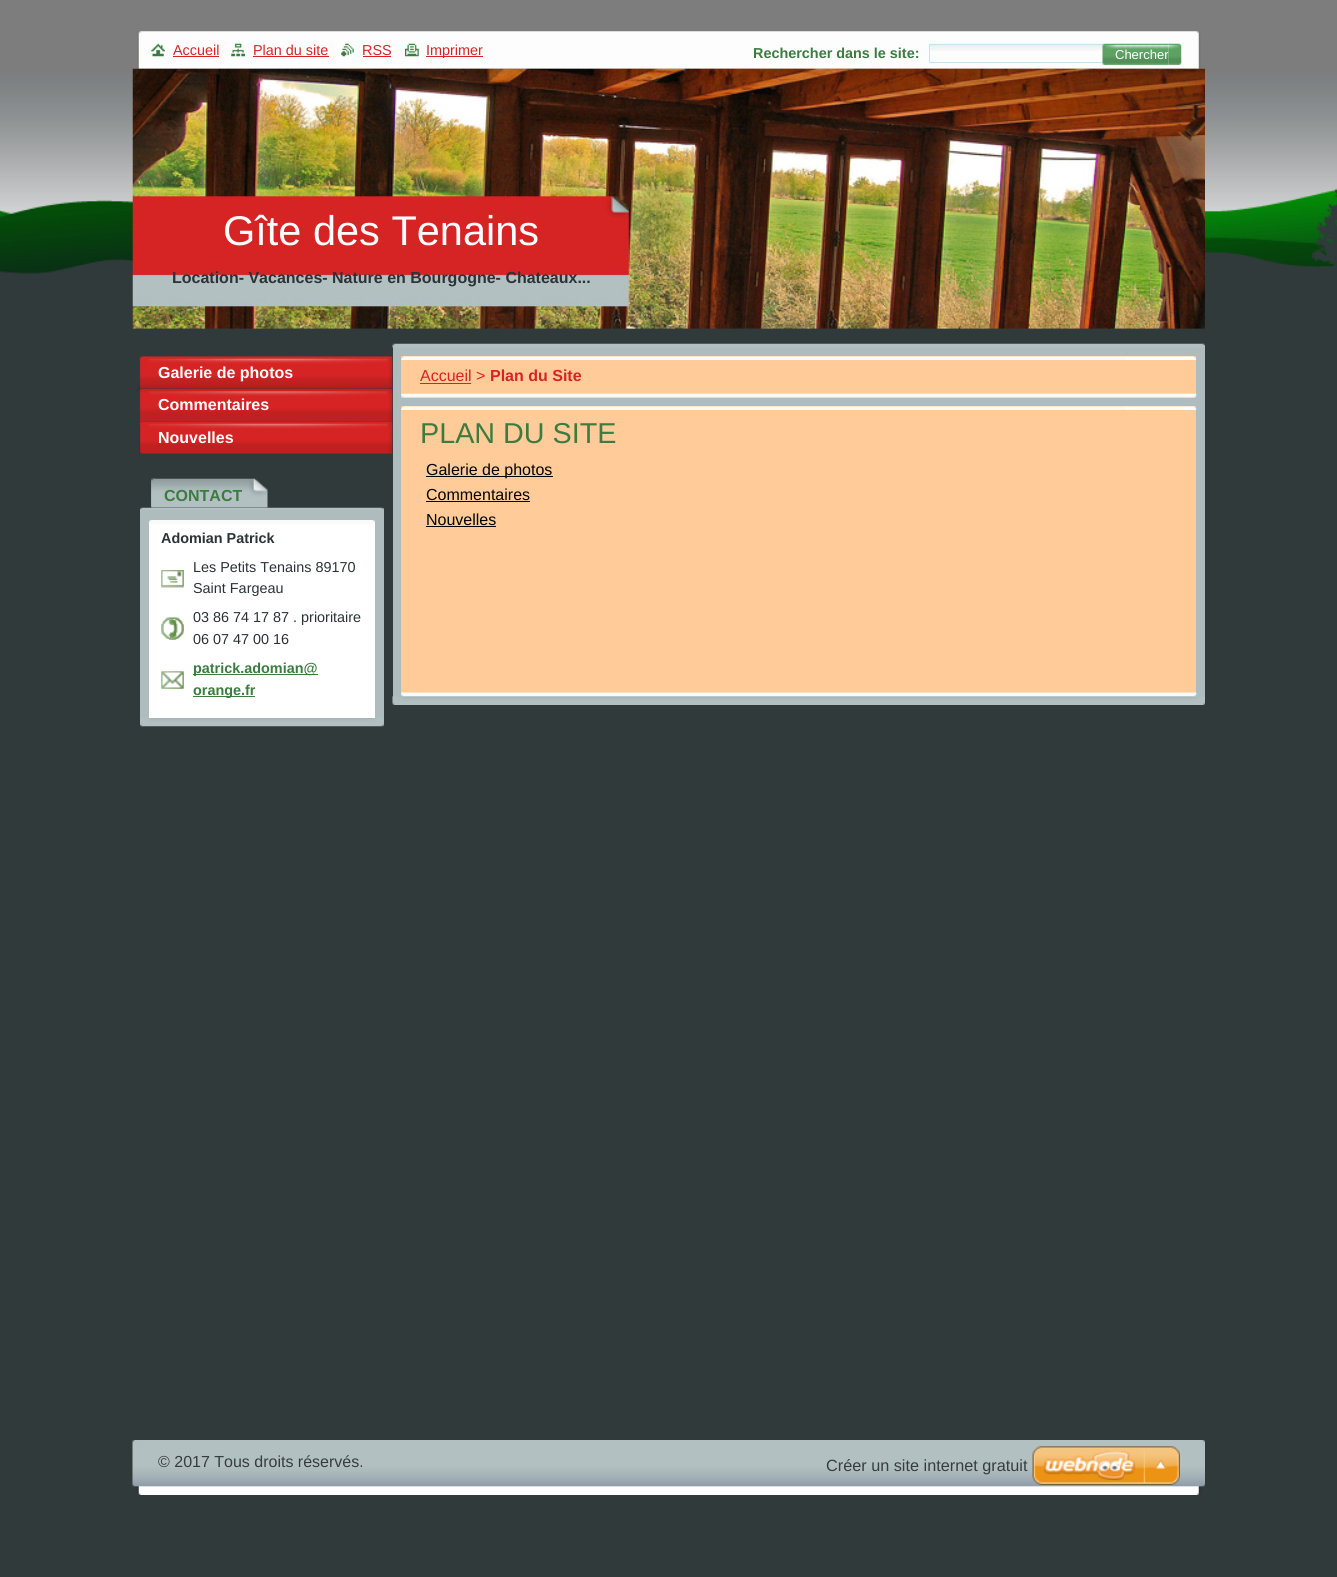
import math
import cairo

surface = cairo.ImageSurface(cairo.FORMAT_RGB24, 1337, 1577)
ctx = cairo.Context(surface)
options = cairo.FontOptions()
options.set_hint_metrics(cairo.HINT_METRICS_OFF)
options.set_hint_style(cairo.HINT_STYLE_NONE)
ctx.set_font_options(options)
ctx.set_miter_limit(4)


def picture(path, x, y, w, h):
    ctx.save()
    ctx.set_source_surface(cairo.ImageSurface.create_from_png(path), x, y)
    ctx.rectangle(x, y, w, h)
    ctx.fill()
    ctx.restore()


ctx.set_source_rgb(0.192, 0.227, 0.231)
ctx.paint()
picture("img1.png", 0, 0, 1337, 274)
picture("img10.png", 137, 31, 1064, 38)
picture("img2.png", 151, 43, 14, 14)
ctx.select_font_face("Liberation Sans")
ctx.set_font_size(14.4)
ctx.set_source_rgb(0.839, 0.141, 0.141)
ctx.move_to(173, 55)
ctx.show_text("Accueil")
ctx.rectangle(173, 56, 46, 1)
ctx.fill()
picture("img3.png", 231, 43, 14, 14)
ctx.move_to(253, 55)
ctx.show_text("Plan du site")
ctx.rectangle(253, 56, 76, 1)
ctx.fill()
picture("img4.png", 341, 43, 13, 14)
ctx.move_to(362, 55)
ctx.show_text("RSS")
ctx.rectangle(363, 56, 28, 1)
ctx.fill()
picture("img5.png", 405, 43, 14, 14)
ctx.rectangle(426, 56, 57, 1)
ctx.fill()
ctx.move_to(426, 55)
ctx.show_text("Imprimer")
ctx.select_font_face("Liberation Sans", cairo.FONT_SLANT_NORMAL, cairo.FONT_WEIGHT_BOLD)
ctx.set_source_rgb(0.235, 0.486, 0.255)
ctx.move_to(753, 58)
ctx.show_text("Rechercher dans le site:")
picture("img6.png", 928, 43, 176, 8)
ctx.rectangle(929.5, 44.5, 174, 18)
ctx.set_source_rgb(0.784, 0.882, 0.933)
ctx.set_line_width(1)
ctx.stroke()
picture("img7.png", 1102, 43, 13, 22)
picture("img8.png", 1115, 43, 54, 22)
ctx.select_font_face("Liberation Sans")
ctx.set_font_size(13)
ctx.set_source_rgb(1, 1, 1)
ctx.move_to(1115, 59)
ctx.show_text("Chercher")
picture("img9.png", 1168, 43, 14, 22)
picture("img11.png", 132, 68, 1073, 261)
ctx.set_font_size(41.5)
ctx.move_to(223, 245)
ctx.show_text("Gîte des Tenains")
ctx.select_font_face("Liberation Sans", cairo.FONT_SLANT_NORMAL, cairo.FONT_WEIGHT_BOLD)
ctx.set_font_size(16)
ctx.set_source_rgb(0.169, 0.2, 0.204)
ctx.move_to(172, 283)
ctx.show_text("Location- Vacances- Nature en Bourgogne- Chateaux...")
picture("img12.png", 138, 356, 255, 33)
ctx.set_source_rgb(1, 1, 1)
ctx.move_to(158, 378)
ctx.show_text("Galerie de photos")
picture("img13.png", 136, 388, 257, 34)
ctx.move_to(158, 410)
ctx.show_text("Commentaires")
picture("img14.png", 139, 421, 254, 33)
ctx.move_to(158, 443)
ctx.show_text("Nouvelles")
picture("img15.png", 151, 478, 117, 30)
picture("img16.png", 151, 478, 4, 29)
ctx.set_source_rgb(0.235, 0.486, 0.255)
ctx.move_to(164, 501)
ctx.show_text("CONTACT")
ctx.set_source_rgb(0.686, 0.737, 0.745)
ctx.rectangle(140, 508, 244, 218)
ctx.fill()
picture("img17.png", 140, 717, 244, 10)
picture("img18.png", 140, 507, 244, 3)
ctx.set_source_rgb(1, 1, 1)
ctx.rectangle(149, 523, 226, 195)
ctx.fill()
picture("img19.png", 148, 520, 227, 4)
ctx.set_font_size(14.4)
ctx.set_source_rgb(0.169, 0.2, 0.204)
ctx.move_to(161, 543)
ctx.show_text("Adomian Patrick")
picture("img20.png", 161, 570, 23, 18)
ctx.select_font_face("Liberation Sans")
ctx.move_to(193, 572)
ctx.show_text("Les Petits Tenains 89170")
ctx.move_to(193, 593)
ctx.show_text("Saint Fargeau")
picture("img21.png", 161, 617, 23, 23)
ctx.move_to(193, 622)
ctx.show_text("03 86 74 17 87 . prioritaire")
ctx.move_to(193, 644)
ctx.show_text("06 07 47 00 16")
picture("img22.png", 161, 671, 23, 18)
ctx.set_source_rgb(0.235, 0.486, 0.255)
ctx.rectangle(193, 674, 125, 1)
ctx.fill()
ctx.select_font_face("Liberation Sans", cairo.FONT_SLANT_NORMAL, cairo.FONT_WEIGHT_BOLD)
ctx.move_to(193, 673)
ctx.show_text("patrick.adomian@")
ctx.rectangle(193, 696, 56, 1)
ctx.fill()
ctx.move_to(193, 695)
ctx.show_text("orange.fr")
ctx.rectangle(249, 696, 6, 1)
ctx.fill()
ctx.set_source_rgb(0.686, 0.737, 0.745)
ctx.rectangle(393, 347, 812, 350)
ctx.fill()
picture("img23.png", 392, 696, 813, 9)
picture("img24.png", 392, 343, 813, 5)
ctx.set_source_rgb(1, 0.8, 0.6)
ctx.rectangle(401, 356, 795, 42)
ctx.fill()
picture("img25.png", 401, 393, 796, 5)
picture("img26.png", 401, 356, 796, 4)
ctx.select_font_face("Liberation Sans")
ctx.set_font_size(16)
ctx.set_source_rgb(0.839, 0.141, 0.141)
ctx.move_to(420, 381)
ctx.show_text("Accueil >")
ctx.rectangle(420, 383, 51, 1)
ctx.fill()
ctx.select_font_face("Liberation Sans", cairo.FONT_SLANT_NORMAL, cairo.FONT_WEIGHT_BOLD)
ctx.move_to(490, 381)
ctx.show_text("Plan du Site")
ctx.set_source_rgb(1, 0.8, 0.6)
ctx.rectangle(401, 406, 795, 290)
ctx.fill()
picture("img27.png", 401, 692, 796, 5)
picture("img26.png", 401, 406, 796, 4)
ctx.select_font_face("Liberation Sans")
ctx.set_font_size(28.75)
ctx.set_source_rgb(0.235, 0.486, 0.255)
ctx.move_to(420, 443)
ctx.show_text("PLAN DU SITE")
ctx.set_source_rgb(0.008, 0.008, 0.008)
ctx.rectangle(426, 476, 127, 1)
ctx.fill()
ctx.set_font_size(16)
ctx.move_to(426, 475)
ctx.show_text("Galerie de photos")
ctx.move_to(426, 500)
ctx.show_text("Commentaires")
ctx.rectangle(426, 501, 104, 1)
ctx.fill()
ctx.move_to(426, 525)
ctx.show_text("Nouvelles")
ctx.rectangle(426, 526, 70, 1)
ctx.fill()
picture("img28.png", 132, 1440, 1073, 55)
ctx.save()
ctx.rectangle(158, 1453, 1022, 23)
ctx.clip()
ctx.set_source_rgb(0.208, 0.239, 0.247)
ctx.move_to(158, 1467)
ctx.show_text("© 2017 Tous droits réservés.")
ctx.restore()
ctx.set_font_size(16.25)
ctx.set_source_rgb(0.208, 0.239, 0.247)
ctx.move_to(826, 1471)
ctx.show_text("Créer un site internet gratuit")
picture("img29.png", 1032, 1446, 148, 39)
surface.write_to_png("page.png")
